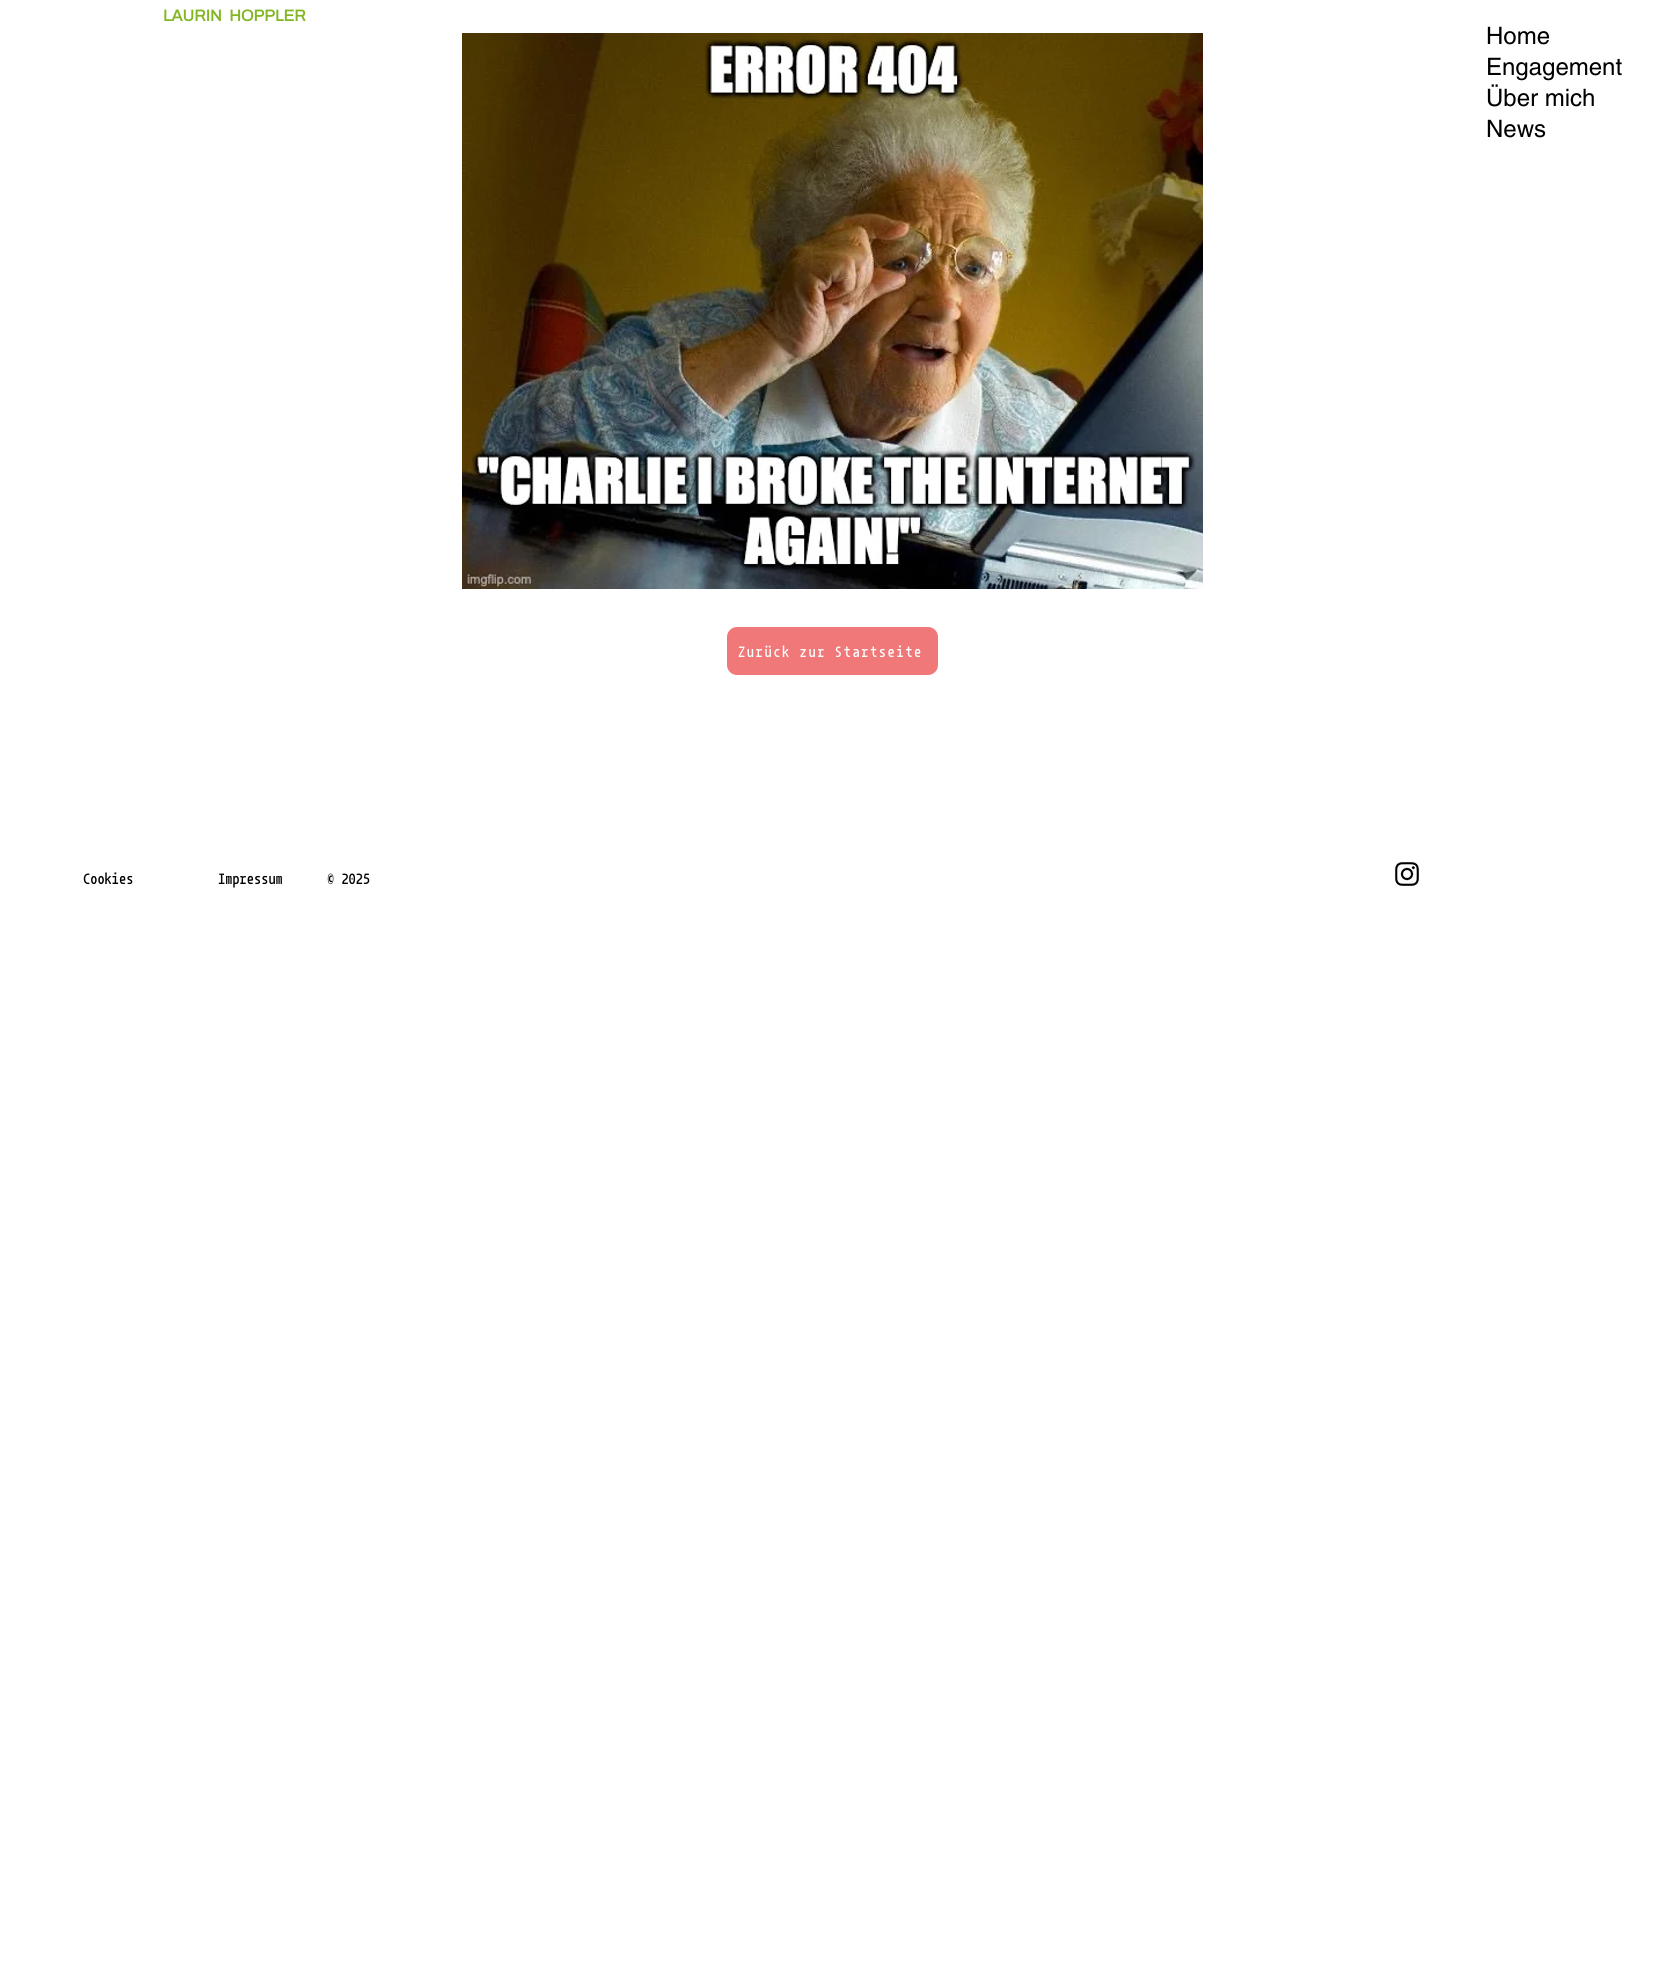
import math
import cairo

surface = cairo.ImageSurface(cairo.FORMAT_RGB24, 1666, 1967)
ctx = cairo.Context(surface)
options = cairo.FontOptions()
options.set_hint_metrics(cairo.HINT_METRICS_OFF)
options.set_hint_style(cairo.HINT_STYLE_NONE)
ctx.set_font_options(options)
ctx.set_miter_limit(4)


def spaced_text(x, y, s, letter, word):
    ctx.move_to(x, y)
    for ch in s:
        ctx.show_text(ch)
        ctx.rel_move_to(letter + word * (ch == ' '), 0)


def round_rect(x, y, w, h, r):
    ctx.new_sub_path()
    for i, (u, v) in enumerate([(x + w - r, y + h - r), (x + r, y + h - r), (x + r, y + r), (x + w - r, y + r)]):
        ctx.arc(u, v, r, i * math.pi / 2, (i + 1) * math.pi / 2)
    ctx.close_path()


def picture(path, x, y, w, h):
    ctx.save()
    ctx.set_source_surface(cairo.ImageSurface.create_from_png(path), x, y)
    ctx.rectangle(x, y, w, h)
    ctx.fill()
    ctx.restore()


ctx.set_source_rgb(1, 1, 1)
ctx.paint()
ctx.select_font_face("Archivo", cairo.FONT_SLANT_NORMAL, cairo.FONT_WEIGHT_BOLD)
ctx.set_font_size(16)
ctx.set_source_rgb(0.51, 0.714, 0.137)
spaced_text(163, 21, "LAURIN HOPPLER", 0, 4)
ctx.select_font_face("helvetica")
ctx.set_font_size(24)
ctx.set_source_rgb(0, 0, 0)
ctx.move_to(1486, 44)
ctx.show_text("Home")
ctx.move_to(1486, 75)
ctx.show_text("Engagement")
ctx.move_to(1486, 106)
ctx.show_text("Über mich")
ctx.move_to(1486, 137)
ctx.show_text("News")
picture("img1.png", 462, 33, 741, 556)
ctx.set_source_rgb(0.941, 0.471, 0.471)
round_rect(727, 627, 211, 48, 10)
ctx.fill()
ctx.select_font_face("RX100")
ctx.set_font_size(16)
ctx.set_source_rgb(1, 1, 1)
spaced_text(738, 657, "Zurück zur Startseite", 1.6, 0)
ctx.set_source_rgb(0, 0, 0)
ctx.move_to(83, 884)
ctx.show_text("Cookies")
ctx.move_to(218, 884)
ctx.show_text("Impressum")
ctx.move_to(327, 884)
ctx.show_text("© 2025")
picture("img2.png", 1395, 862, 24, 24)
surface.write_to_png("page.png")
